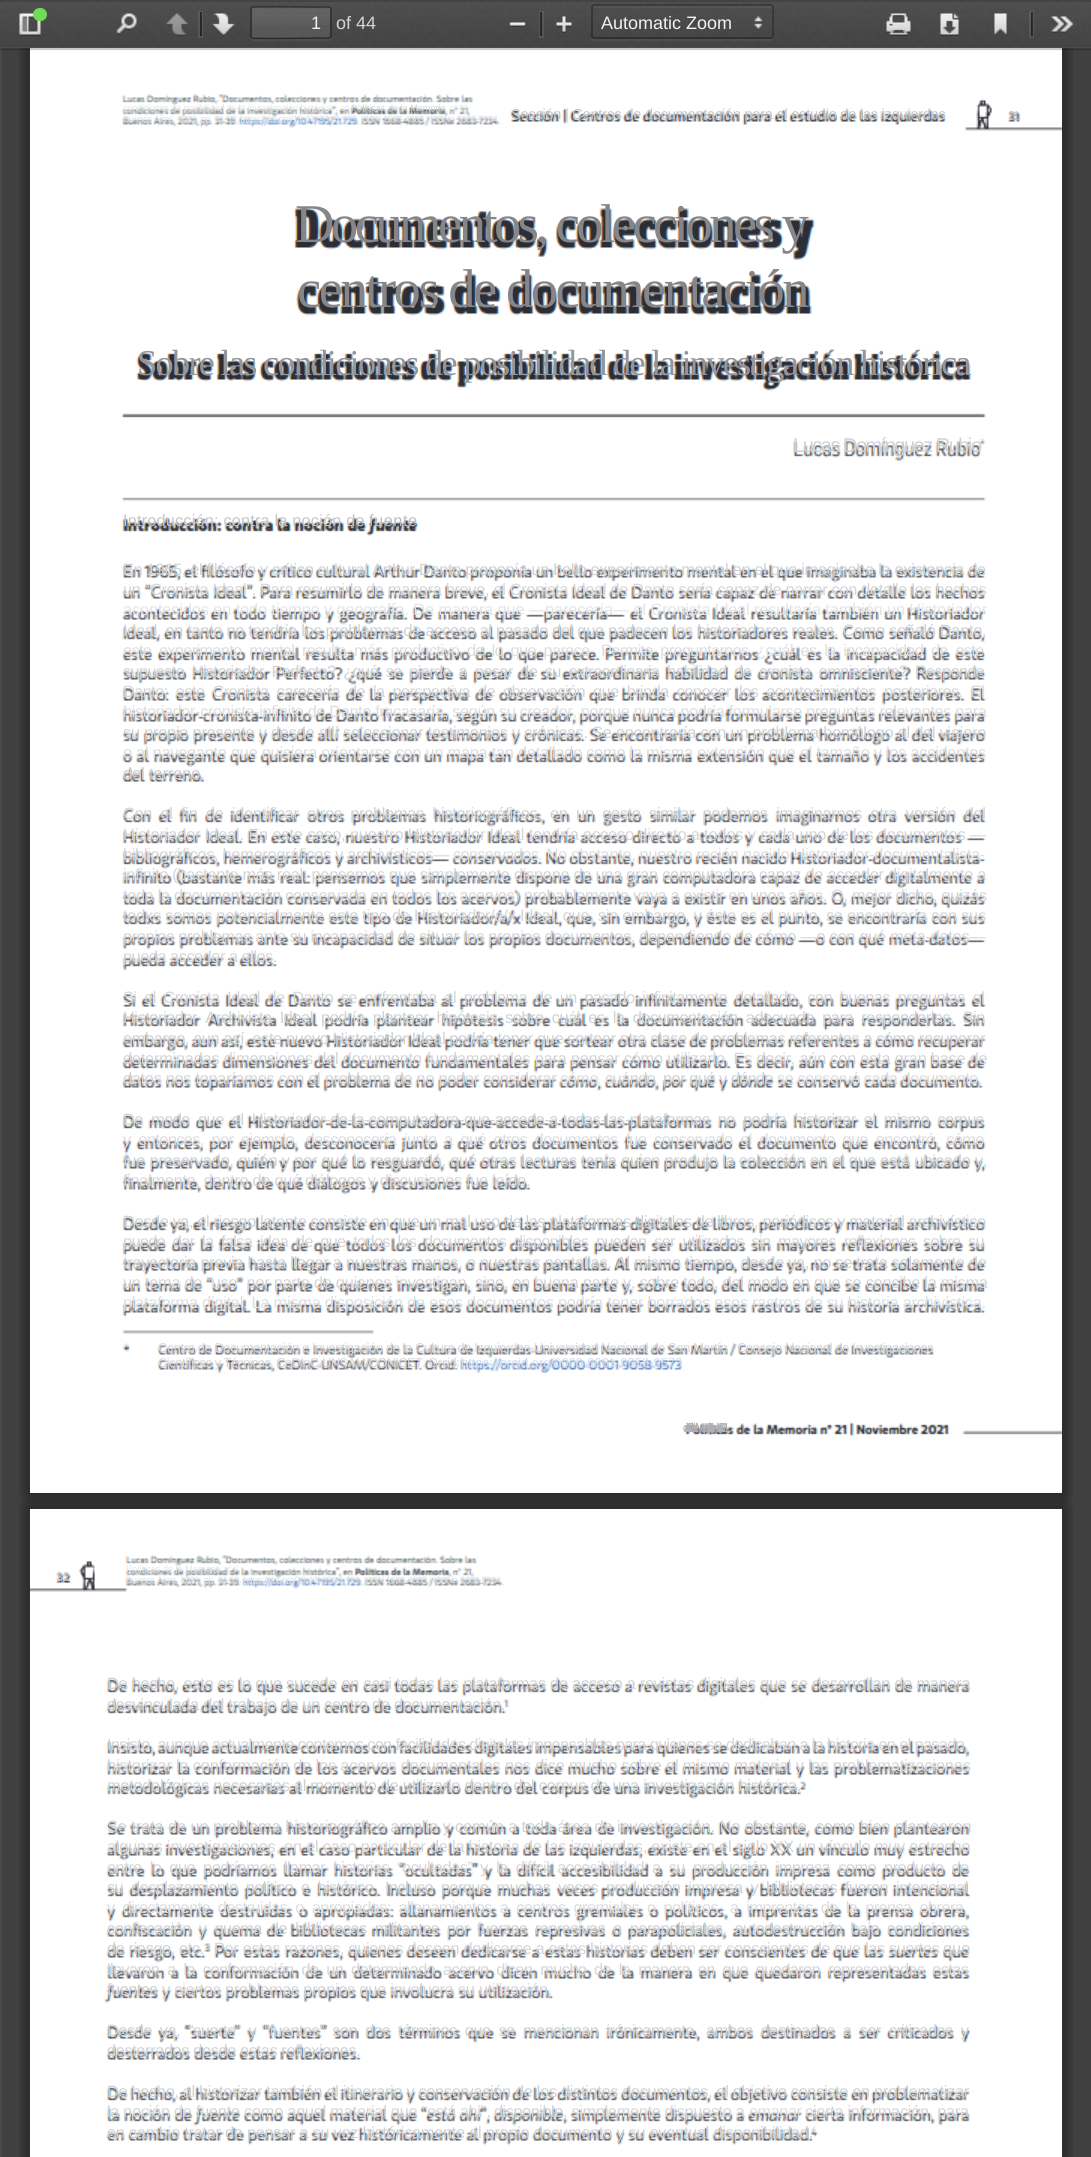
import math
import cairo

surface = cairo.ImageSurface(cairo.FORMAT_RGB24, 1091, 2157)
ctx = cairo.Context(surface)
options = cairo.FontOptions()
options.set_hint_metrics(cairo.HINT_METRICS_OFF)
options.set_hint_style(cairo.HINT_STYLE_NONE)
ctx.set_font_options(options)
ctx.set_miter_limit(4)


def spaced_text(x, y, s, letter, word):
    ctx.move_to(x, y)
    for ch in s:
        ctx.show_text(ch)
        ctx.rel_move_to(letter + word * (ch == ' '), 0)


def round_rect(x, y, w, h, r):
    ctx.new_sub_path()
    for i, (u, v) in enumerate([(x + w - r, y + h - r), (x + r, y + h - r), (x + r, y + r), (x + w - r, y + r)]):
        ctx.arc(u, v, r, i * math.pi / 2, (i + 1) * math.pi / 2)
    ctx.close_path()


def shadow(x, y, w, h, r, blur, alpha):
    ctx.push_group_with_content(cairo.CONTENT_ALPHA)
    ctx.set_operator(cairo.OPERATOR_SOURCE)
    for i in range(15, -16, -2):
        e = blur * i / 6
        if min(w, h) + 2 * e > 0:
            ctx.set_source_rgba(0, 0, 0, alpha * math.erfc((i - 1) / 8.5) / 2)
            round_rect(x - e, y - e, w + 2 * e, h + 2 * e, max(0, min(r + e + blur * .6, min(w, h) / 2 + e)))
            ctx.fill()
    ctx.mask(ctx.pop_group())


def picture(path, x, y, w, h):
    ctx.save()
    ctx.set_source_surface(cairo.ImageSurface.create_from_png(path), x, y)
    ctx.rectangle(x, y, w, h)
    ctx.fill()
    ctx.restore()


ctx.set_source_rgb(0.251, 0.251, 0.251)
ctx.paint()
ctx.set_source_rgb(0.29, 0.29, 0.29)
ctx.rectangle(0, 48, 2, 2109)
ctx.fill()
picture("img13.png", 19, 48, 1054, 1456)
picture("img14.png", 30, 48, 1032, 1445)
ctx.save()
ctx.rectangle(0, 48, 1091, 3)
ctx.clip()
ctx.set_source_rgb(0, 0, 0)
shadow(0, 2, 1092, 48, 0, 1, 0.1)
ctx.restore()
ctx.set_source_rgba(0, 0, 0, 0.15)
ctx.rectangle(0, 48, 1091, 2)
ctx.fill()
picture("img1.png", 0, 0, 1091, 48)
ctx.set_source_rgba(1, 1, 1, 0.05)
ctx.rectangle(0, 47, 1091, 2)
ctx.fill()
ctx.set_source_rgba(0, 0, 0, 0.15)
ctx.rectangle(0, 0, 1091, 2)
ctx.fill()
picture("img2.png", 19, 13, 22, 23)
ctx.set_source_rgb(0.439, 0.859, 0.333)
round_rect(33, 8, 14, 13, 6.5)
ctx.fill()
picture("img3.png", 116, 13, 21, 22)
picture("img4.png", 166, 13, 22, 23)
ctx.rectangle(199, 12, 3, 25)
ctx.set_source_rgba(1, 1, 1, 0.08)
ctx.stroke()
ctx.set_source_rgba(0, 0, 0, 0.5)
ctx.rectangle(200, 12, 2, 24)
ctx.fill()
picture("img5.png", 212, 13, 23, 23)
ctx.set_source_rgba(1, 1, 1, 0.05)
ctx.new_path()
ctx.move_to(251, 38)
ctx.curve_to(251, 44, 266, 41, 266, 41)
ctx.line_to(316, 41)
ctx.curve_to(333, 41, 332, 44, 332, 29)
ctx.curve_to(332, 26, 333, 11, 332, 9)
ctx.line_to(332, 36)
ctx.curve_to(332, 38, 330, 39, 328, 39)
ctx.line_to(254, 39)
ctx.curve_to(252, 39, 252, 38, 251, 38)
ctx.close_path()
ctx.fill()
ctx.set_source_rgba(1, 1, 1, 0.09)
ctx.rectangle(252, 8, 78, 30)
ctx.fill()
gradient = cairo.LinearGradient(291, 7.5, 291, 38)
gradient.add_color_stop_rgba(0, 1, 1, 1, 0.05)
gradient.add_color_stop_rgba(1, 1, 1, 1, 0)
ctx.set_source(gradient)
ctx.rectangle(252, 8, 78, 17)
ctx.fill()
ctx.set_source_rgba(0, 0, 0, 0.05)
ctx.new_path()
ctx.move_to(254, 9)
ctx.line_to(328, 9)
ctx.line_to(330, 10)
ctx.curve_to(330, 9, 330, 8, 328, 8)
ctx.line_to(253, 8)
ctx.curve_to(252, 8, 252, 9, 252, 10)
ctx.close_path()
ctx.fill()
ctx.new_path()
ctx.move_to(252, 7.5)
ctx.line_to(252.5, 7)
ctx.curve_to(254, 6, 309.5, 7, 316, 7)
ctx.line_to(328.5, 7)
ctx.line_to(330, 7.5)
ctx.set_source_rgba(0, 0, 0, 0.32)
ctx.set_line_width(1.5)
ctx.stroke()
ctx.new_path()
ctx.move_to(330, 7.5)
ctx.curve_to(330.5, 8, 331, 8.5, 331, 9)
ctx.line_to(331, 36)
ctx.curve_to(331, 36.5, 330.5, 37, 330, 37.5)
ctx.set_source_rgba(0, 0, 0, 0.38)
ctx.stroke()
ctx.new_path()
ctx.move_to(330, 37.5)
ctx.line_to(328.5, 38)
ctx.line_to(316, 38)
ctx.curve_to(309.5, 38, 254, 39, 252.5, 38)
ctx.line_to(252, 37.5)
ctx.set_source_rgba(0, 0, 0, 0.42)
ctx.stroke()
ctx.new_path()
ctx.move_to(252, 37.5)
ctx.curve_to(251.5, 37, 251, 36.5, 251, 36)
ctx.line_to(251, 9)
ctx.curve_to(251, 8.5, 251.5, 8, 252, 7.5)
ctx.set_source_rgba(0, 0, 0, 0.38)
ctx.stroke()
ctx.select_font_face("Liberation Sans")
ctx.set_font_size(18)
ctx.set_source_rgb(0.949, 0.949, 0.949)
ctx.move_to(311, 29)
ctx.show_text("1")
ctx.set_source_rgb(0.835, 0.835, 0.843)
ctx.move_to(336, 29)
ctx.show_text("of 44")
picture("img6.png", 509, 22, 17, 5)
ctx.rectangle(540, 12, 3, 25)
ctx.set_source_rgba(1, 1, 1, 0.08)
ctx.set_line_width(2)
ctx.stroke()
ctx.set_source_rgba(0, 0, 0, 0.5)
ctx.rectangle(540, 12, 2, 24)
ctx.fill()
picture("img7.png", 556, 16, 16, 17)
ctx.set_source_rgba(1, 1, 1, 0.05)
ctx.new_path()
ctx.move_to(591, 36)
ctx.curve_to(591, 38, 591, 41, 594, 41)
ctx.line_to(771, 41)
ctx.curve_to(774, 41, 774, 38, 774, 36)
ctx.curve_to(774, 38, 773, 39, 771, 39)
ctx.line_to(594, 39)
ctx.curve_to(592, 39, 591, 38, 591, 36)
ctx.close_path()
ctx.fill()
picture("img8.png", 754, 16, 9, 13)
ctx.new_path()
ctx.move_to(594, 8)
ctx.line_to(771, 8)
ctx.curve_to(772, 8, 772, 8, 772, 9)
ctx.line_to(772, 38)
ctx.curve_to(774, 37, 773, 12, 773, 8)
ctx.curve_to(773, 7, 772, 6, 772, 6)
ctx.line_to(594, 6)
ctx.line_to(593, 7)
ctx.line_to(593, 8)
ctx.close_path()
ctx.fill()
ctx.new_path()
ctx.move_to(592.5, 6)
ctx.line_to(594, 5)
ctx.line_to(771, 5)
ctx.line_to(772.5, 6)
ctx.set_source_rgba(0, 0, 0, 0.32)
ctx.set_line_width(1.5)
ctx.stroke()
ctx.new_path()
ctx.move_to(772.5, 6)
ctx.curve_to(773, 6.5, 773, 7, 773, 7.5)
ctx.line_to(773, 36)
ctx.curve_to(773, 36.5, 773, 37, 772.5, 37.5)
ctx.set_source_rgba(0, 0, 0, 0.38)
ctx.stroke()
ctx.new_path()
ctx.move_to(772.5, 37.5)
ctx.line_to(771, 38)
ctx.line_to(594, 38)
ctx.line_to(592.5, 37.5)
ctx.set_source_rgba(0, 0, 0, 0.42)
ctx.stroke()
ctx.new_path()
ctx.move_to(592.5, 37.5)
ctx.curve_to(592, 37, 592, 36.5, 592, 36)
ctx.line_to(592, 7.5)
ctx.curve_to(592, 7, 592, 6.5, 592.5, 6)
ctx.set_source_rgba(0, 0, 0, 0.38)
ctx.stroke()
ctx.set_source_rgb(0.949, 0.949, 0.949)
ctx.move_to(601, 29)
ctx.show_text("Automatic Zoom")
picture("img9.png", 886, 13, 25, 23)
picture("img10.png", 940, 13, 19, 23)
picture("img11.png", 994, 13, 13, 23)
ctx.rectangle(1030, 12, 3, 25)
ctx.set_source_rgba(1, 1, 1, 0.08)
ctx.set_line_width(2)
ctx.stroke()
ctx.set_source_rgba(0, 0, 0, 0.5)
ctx.rectangle(1031, 12, 2, 24)
ctx.fill()
picture("img12.png", 1051, 16, 23, 17)
ctx.set_font_size(9.1)
ctx.set_source_rgb(0.808, 0.824, 0.831)
spaced_text(217, 101, ",", -0.24, 0)
spaced_text(273, 101, ",", -0.24, 0)
ctx.set_source_rgb(0.886, 0.894, 0.898)
spaced_text(123, 111, "condiciones de posibilidad de la investigación histórica”, en", -0.19, 0)
ctx.set_source_rgb(0.808, 0.824, 0.831)
ctx.move_to(351, 111)
ctx.show_text("Políticas de la Memoria")
ctx.set_source_rgb(0.925, 0.929, 0.929)
spaced_text(445, 111, ", n° 21,", -0.5, 0)
ctx.set_font_size(14.55)
ctx.set_source_rgb(0.769, 0.773, 0.78)
spaced_text(511, 119, "Sección | Centros de documentación para el estudio de las izquierdas", -0.23, 0)
ctx.set_font_size(12.75)
ctx.set_source_rgb(0.741, 0.733, 0.745)
spaced_text(1008, 120, "31", -2, 0)
ctx.set_font_size(9.1)
ctx.set_source_rgb(0.855, 0.875, 0.894)
spaced_text(123, 122, "Buenos Aires, 2021, pp. 31-39. https://doi.org/10.47195/21.729. ISSN 1668-4885 / ISSNe 2683-7234.", -0.32, -0.1)
ctx.select_font_face("Liberation Serif")
ctx.set_font_size(54.6)
ctx.set_source_rgb(0.525, 0.522, 0.533)
spaced_text(295, 242, "Documentos, colecciones y", -3.55, 0)
spaced_text(297, 307, "centros de documentación", -2.5, 0)
ctx.set_font_size(36.4)
ctx.set_source_rgb(0.584, 0.588, 0.604)
spaced_text(137, 375, "Sobre las condiciones de posibilidad de la investigación histórica", -1.75, 0)
ctx.select_font_face("Liberation Sans")
ctx.set_font_size(20)
ctx.set_source_rgb(0.808, 0.824, 0.831)
spaced_text(793, 452, "Lucas Domínguez Rubio", -1.5, 0)
ctx.set_font_size(12)
ctx.set_source_rgb(0.886, 0.894, 0.898)
ctx.move_to(980, 446)
ctx.show_text("*")
ctx.set_font_size(16.38)
ctx.set_source_rgb(0.769, 0.773, 0.78)
spaced_text(123, 526, "Introducción: contra la noción de", 0.15, 0)
ctx.set_source_rgb(0.741, 0.733, 0.745)
spaced_text(369, 526, "fuente", 0.5, 0)
ctx.set_source_rgb(0.808, 0.824, 0.831)
spaced_text(123, 575, "En 1965, el filósofo y crítico cultural Arthur Danto proponía un bello experimento mental en el que imaginaba la existencia de", -0.33, 0)
ctx.set_source_rgb(0.835, 0.835, 0.843)
spaced_text(123, 595, "un “Cronista Ideal”. Para resumirlo de manera breve, el Cronista Ideal de Danto sería capaz de narrar con detalle los hechos", -0.33, 0)
ctx.set_source_rgb(0.886, 0.894, 0.898)
spaced_text(123, 615, "acontecidos en todo tiempo y geografía. De manera que —parecería— el Cronista Ideal resultaría también un Historiador", -0.14, 0)
ctx.set_source_rgb(0.808, 0.824, 0.831)
spaced_text(123, 636, "Ideal, en tanto no tendría los problemas de acceso al pasado del que padecen los historiadores reales. Como señaló Danto,", -0.31, 0)
ctx.set_source_rgb(0.863, 0.867, 0.871)
spaced_text(123, 656, "este  experimento  mental  resulta  más  productivo  de  lo  que  parece.  Permite  preguntarnos  ¿cuál  es  la  incapacidad  de  este", -0.69, 0)
ctx.set_source_rgb(0.808, 0.824, 0.831)
spaced_text(123, 677, "supuesto  Historiador  Perfecto?  ¿qué  se  pierde  a  pesar  de  su  extraordinaria  habilidad  de  cronista  omnisciente?  Responde", -0.67, 0)
ctx.set_source_rgb(0.835, 0.835, 0.843)
spaced_text(123, 697, "Danto:  este  Cronista  carecería  de  la  perspectiva  de  observación  que  brinda  conocer  los  acontecimientos  posteriores.  El", -0.57, 0)
ctx.set_source_rgb(0.863, 0.867, 0.871)
spaced_text(123, 717, "historiador-cronista-infinito de Danto fracasaría, según su creador, porque nunca podría formularse preguntas relevantes para", -0.4, 0)
ctx.set_source_rgb(0.808, 0.824, 0.831)
spaced_text(123, 738, "su propio presente y desde allí seleccionar testimonios y crónicas. Se encontraría con un problema homólogo al del viajero", -0.24, 0)
ctx.set_source_rgb(0.863, 0.867, 0.871)
spaced_text(123, 758, "o al navegante que quisiera orientarse con un mapa tan detallado como la misma extensión que el tamaño y los accidentes", -0.27, 0)
ctx.set_source_rgb(0.804, 0.796, 0.8)
spaced_text(123, 779, "del terreno.", -0.1, 0)
ctx.set_source_rgb(0.808, 0.824, 0.831)
spaced_text(123, 819, "Con  el  fin  de  identificar  otros  problemas  historiográficos,  en  un  gesto  similar  podemos  imaginarnos  otra  versión  del", -0.32, 0)
ctx.set_source_rgb(0.835, 0.835, 0.843)
spaced_text(123, 840, "Historiador Ideal. En este caso, nuestro Historiador Ideal tendría acceso directo a todos y cada uno de los documentos —", -0.16, 0)
spaced_text(123, 860, "bibliográficos, hemerográficos y archivísticos—", -0.32, 0)
ctx.set_source_rgb(0.863, 0.867, 0.871)
spaced_text(453, 860, "conservados", -0.7, 0)
spaced_text(538, 860, ". No obstante, nuestro recién nacido Historiador-documentalista-", -0.33, 0)
ctx.set_source_rgb(0.835, 0.835, 0.843)
spaced_text(123, 880, "infinito (bastante más real: pensemos que simplemente dispone de una gran computadora capaz de acceder digitalmente a", -0.28, 0)
spaced_text(123, 901, "toda la documentación conservada en todos los acervos) probablemente vaya a existir en unos años. O, mejor dicho, quizás", -0.33, 0)
spaced_text(123, 921, "todxs somos potencialmente este tipo de Historiador/a/x Ideal, que, sin embargo, y éste es el punto, se encontraría con sus", -0.26, 0)
spaced_text(123, 942, "propios problemas ante su incapacidad de", -0.39, 0)
ctx.set_source_rgb(0.808, 0.824, 0.831)
ctx.move_to(419, 942)
ctx.show_text("situar")
ctx.set_source_rgb(0.835, 0.835, 0.843)
spaced_text(464, 942, "los propios documentos, dependiendo de cómo —o con qué meta-datos—", -0.28, 0)
spaced_text(123, 962, "pueda acceder a ellos.", -0.5, 0)
spaced_text(123, 1003, "Si  el  Cronista  Ideal  de  Danto  se  enfrentaba  al  problema  de  un  pasado  infinitamente  detallado,  con  buenas  preguntas  el", -0.63, 0)
ctx.set_source_rgb(0.808, 0.824, 0.831)
spaced_text(123, 1023, "Historiador  Archivista  Ideal  podría  plantear  hipótesis  sobre  cuál  es  la  documentación  adecuada  para  responderlas.  Sin", -0.47, 0)
spaced_text(123, 1044, "embargo, aun así, este nuevo Historiador Ideal podría tener que sortear otra clase de problemas referentes a cómo recuperar", -0.4, 0)
ctx.set_source_rgb(0.835, 0.835, 0.843)
spaced_text(123, 1064, "determinadas dimensiones del documento fundamentales para pensar cómo utilizarlo. Es decir, aún con esta gran base de", -0.24, 0)
spaced_text(123, 1084, "datos nos toparíamos con el problema de no poder considerar", -0.31, 0)
ctx.set_source_rgb(0.855, 0.875, 0.894)
spaced_text(560, 1084, "cómo", -0.5, 0)
ctx.set_source_rgb(0.925, 0.929, 0.929)
spaced_text(597, 1084, ",", -0.64, 0)
ctx.set_source_rgb(0.835, 0.835, 0.843)
spaced_text(605, 1084, "cuándo", -0.58, 0)
ctx.set_source_rgb(0.922, 0.937, 0.957)
spaced_text(655, 1084, ",", -0.64, 0)
ctx.set_source_rgb(0.808, 0.824, 0.831)
spaced_text(663, 1084, "por qué", -0.52, 0)
ctx.set_source_rgb(0.835, 0.835, 0.843)
spaced_text(719, 1084, "y", -0.35, 0)
ctx.set_source_rgb(0.808, 0.824, 0.831)
spaced_text(731, 1084, "dónde", -0.75, 0)
ctx.set_source_rgb(0.863, 0.867, 0.871)
spaced_text(777, 1084, "se conservó cada documento.", -0.5, 0)
ctx.set_source_rgb(0.808, 0.824, 0.831)
spaced_text(123, 1125, "De  modo  que  el  Historiador-de-la-computadora-que-accede-a-todas-las-plataformas  no  podría  historizar  el  mismo  corpus", -0.51, 0)
ctx.set_source_rgb(0.863, 0.867, 0.871)
spaced_text(123, 1145, "y  entonces,  por  ejemplo,  desconocería  junto  a  qué  otros  documentos  fue  conservado  el  documento  que  encontró,  cómo", -0.64, 0)
ctx.set_source_rgb(0.808, 0.824, 0.831)
spaced_text(123, 1166, "fue preservado, quién y por qué lo resguardó, qué otras lecturas tenía quien produjo la colección en el que está ubicado y,", -0.19, 0)
ctx.set_source_rgb(0.835, 0.835, 0.843)
spaced_text(123, 1186, "finalmente, dentro de qué diálogos y discusiones fue leído.", -0.32, 0)
ctx.set_source_rgb(0.808, 0.824, 0.831)
spaced_text(123, 1227, "Desde ya, el riesgo latente consiste en que un mal uso de las plataformas digitales de libros, periódicos y material archivístico", -0.39, 0)
ctx.set_source_rgb(0.835, 0.835, 0.843)
spaced_text(123, 1247, "puede  dar  la  falsa  idea  de  que  todos  los  documentos  disponibles  pueden  ser  utilizados  sin  mayores  reflexiones  sobre  su", -0.7, 0)
ctx.set_source_rgb(0.808, 0.824, 0.831)
spaced_text(123, 1268, "trayectoria previa hasta llegar a nuestras manos, o nuestras pantallas. Al mismo tiempo, desde ya, no se trata solamente de", -0.3, 0)
ctx.set_source_rgb(0.835, 0.835, 0.843)
spaced_text(123, 1288, "un tema de “uso” por parte de quienes investigan, sino, en buena parte y, sobre todo, del modo en que se concibe la misma", -0.28, 0)
ctx.set_source_rgb(0.855, 0.875, 0.894)
spaced_text(123, 1308, "plataforma digital. La misma disposición de esos documentos podría tener borrados esos rastros de su historia archivística.", -0.26, 0)
ctx.set_font_size(12.75)
ctx.set_source_rgb(0.835, 0.835, 0.843)
ctx.move_to(124, 1352)
ctx.show_text("*")
spaced_text(158, 1352, "Centro de Documentación e Investigación de la Cultura de Izquierdas-Universidad Nacional de San Martín / Consejo Nacional de In", -0.31, 0)
ctx.set_source_rgb(0.808, 0.824, 0.831)
spaced_text(861, 1352, "vestigaciones", -0.39, 0)
ctx.set_source_rgb(0.835, 0.835, 0.843)
spaced_text(158, 1367, "Científicas y Técnicas, CeDInC-UNSAM/CONICET. Orcid:", -0.53, 0)
ctx.set_source_rgb(0.816, 0.863, 0.933)
spaced_text(461, 1367, "https://orcid.org/0000-0001-9058-9573", 0.1, 0)
ctx.set_source_rgb(0.682, 0.69, 0.706)
spaced_text(686, 1432, "Políticas", -5.25, 0)
spaced_text(691, 1432, "de la", -5.25, 0)
spaced_text(695, 1432, "Memoria n° 21 | Noviembre 2021", -5.25, 0)
picture("img15.png", 19, 1498, 1054, 659)
picture("img16.png", 30, 1509, 1032, 648)
ctx.set_font_size(9.1)
ctx.set_source_rgb(0.886, 0.894, 0.898)
ctx.move_to(126, 1572)
ctx.show_text("Políticas de la Memoria")
spaced_text(220, 1572, ", n° 2", -0.5, 0)
ctx.set_font_size(12.75)
ctx.set_source_rgb(0.769, 0.773, 0.78)
spaced_text(56, 1581, "32", -0.32, 0)
ctx.set_font_size(9.1)
ctx.set_source_rgb(0.855, 0.875, 0.894)
spaced_text(126, 1583, "Buenos Aires, 2021, pp. 31-39. https://doi.org/10.47195/21.729. ISSN 1668-4885 / ISSNe 2683-7234.", -0.32, -0.1)
ctx.set_font_size(16.38)
ctx.set_source_rgb(0.808, 0.824, 0.831)
spaced_text(107, 1689, "De hecho, esto es lo que sucede en casi todas las plataformas de acceso a revistas digitales que se desarrollan de manera", -0.27, 0)
spaced_text(107, 1710, "desvinculada del trabajo de un centro de documentación.", -0.31, 0)
ctx.set_source_rgb(0.835, 0.835, 0.843)
spaced_text(107, 1750, "Insisto, aunque actualmente contemos con facilidades digitales impensables para quienes se dedicaban a la historia en el pasado,", -0.67, 0)
spaced_text(107, 1771, "historizar la conformación de los acervos documentales nos dice mucho sobre el mismo material y las problematizaciones", -0.18, 0)
ctx.set_source_rgb(0.808, 0.824, 0.831)
spaced_text(107, 1791, "metodológicas necesarias al momento de utilizarlo dentro del corpus de una investigación histórica.", -0.28, 0)
spaced_text(107, 1832, "Se trata de un problema historiográfico amplio y común a toda área de investigación. No obstante, como bien plantearon", -0.09, 0)
ctx.set_source_rgb(0.835, 0.835, 0.843)
spaced_text(107, 1852, "algunas investigaciones, en el caso particular de la historia de las izquierdas, existe en el siglo XX un vínculo muy estrecho", -0.24, 0)
spaced_text(107, 1873, "entre  lo  que  podríamos  llamar  historias  “ocultadas”  y  la  difícil  accesibilidad  a  su  producción  impresa  como  producto  de", -0.54, 0)
ctx.set_source_rgb(0.808, 0.824, 0.831)
spaced_text(107, 1893, "su  desplazamiento  político  e  histórico.  Incluso  porque  muchas  veces  producción  impresa  y  bibliotecas  fueron  intencional", -0.58, 0)
ctx.set_source_rgb(0.863, 0.867, 0.871)
spaced_text(107, 1913, "y  directamente  destruidas  o  apropiadas:  allanamientos  a  centros  gremiales  o  políticos,  a  imprentas  de  la  prensa  obrera,", -0.6, 0)
ctx.set_source_rgb(0.808, 0.824, 0.831)
spaced_text(107, 1934, "confiscación  y  quema  de  bibliotecas  militantes  por  fuerzas  represivas  o  parapoliciales,  autodestrucción  bajo  condiciones", -0.53, 0)
spaced_text(107, 1954, "de riesgo, etc.", -0.4, 0)
ctx.set_font_size(10)
ctx.move_to(205, 1950)
ctx.show_text("3")
ctx.set_font_size(16.38)
ctx.set_source_rgb(0.835, 0.835, 0.843)
spaced_text(214, 1954, "Por estas razones, quienes deseen dedicarse a estas historias deben ser conscientes de que las", -0.35, 0)
spaced_text(889, 1954, "suertes", -0.5, 0)
ctx.set_source_rgb(0.808, 0.824, 0.831)
ctx.move_to(943, 1954)
ctx.show_text("que")
ctx.set_source_rgb(0.835, 0.835, 0.843)
spaced_text(107, 1975, "llevaron  a  la  conformación  de  un  determinado  acervo  dicen  mucho  de  la  manera  en  que  quedaron  representadas  estas", -0.63, 0)
ctx.set_source_rgb(0.804, 0.796, 0.8)
spaced_text(107, 1995, "fuentes", -0.5, 0)
ctx.set_source_rgb(0.835, 0.835, 0.843)
spaced_text(162, 1995, "y ciertos problemas propios que involucra su utilización.", -0.26, 0)
ctx.set_source_rgb(0.808, 0.824, 0.831)
spaced_text(107, 2036, "Desde  ya,  “suerte”  y  “fuentes”  son  dos  términos  que  se  mencionan  irónicamente,  ambos  destinados  a  ser  criticados  y", -0.52, 0)
spaced_text(107, 2056, "desterrados desde estas reflexiones.", -0.4, 0)
spaced_text(107, 2097, "De hecho, al historizar también el itinerario y conservación de los distintos documentos, el objetivo consiste en problematizar", -0.34, 0)
ctx.set_source_rgb(0.835, 0.835, 0.843)
spaced_text(107, 2117, "la noción de", -0.32, 0)
ctx.set_source_rgb(0.808, 0.824, 0.831)
spaced_text(196, 2117, "fuente", -0.31, 0)
ctx.set_source_rgb(0.835, 0.835, 0.843)
spaced_text(244, 2117, "como aquel material que “", -0.26, 0)
spaced_text(427, 2117, "está ahí", -0.53, 0)
ctx.move_to(481, 2117)
ctx.show_text("”,")
ctx.set_source_rgb(0.808, 0.824, 0.831)
spaced_text(494, 2117, "disponible", -0.5, 0)
ctx.set_source_rgb(0.835, 0.835, 0.843)
spaced_text(563, 2117, ", simplemente dispuesto a", -0.35, 0)
ctx.set_source_rgb(0.863, 0.867, 0.871)
spaced_text(749, 2117, "emanar", -0.5, 0)
ctx.set_source_rgb(0.835, 0.835, 0.843)
spaced_text(805, 2117, "cierta información, para", -0.31, 0)
ctx.set_source_rgb(0.808, 0.824, 0.831)
spaced_text(107, 2138, "en cambio tratar de pensar a su vez históricamente al propio documento y su eventual disponibilidad.", -0.29, 0)
ctx.set_font_size(10)
ctx.set_source_rgb(0.886, 0.894, 0.898)
ctx.move_to(811, 2133)
ctx.show_text("4")
surface.write_to_png("page.png")
